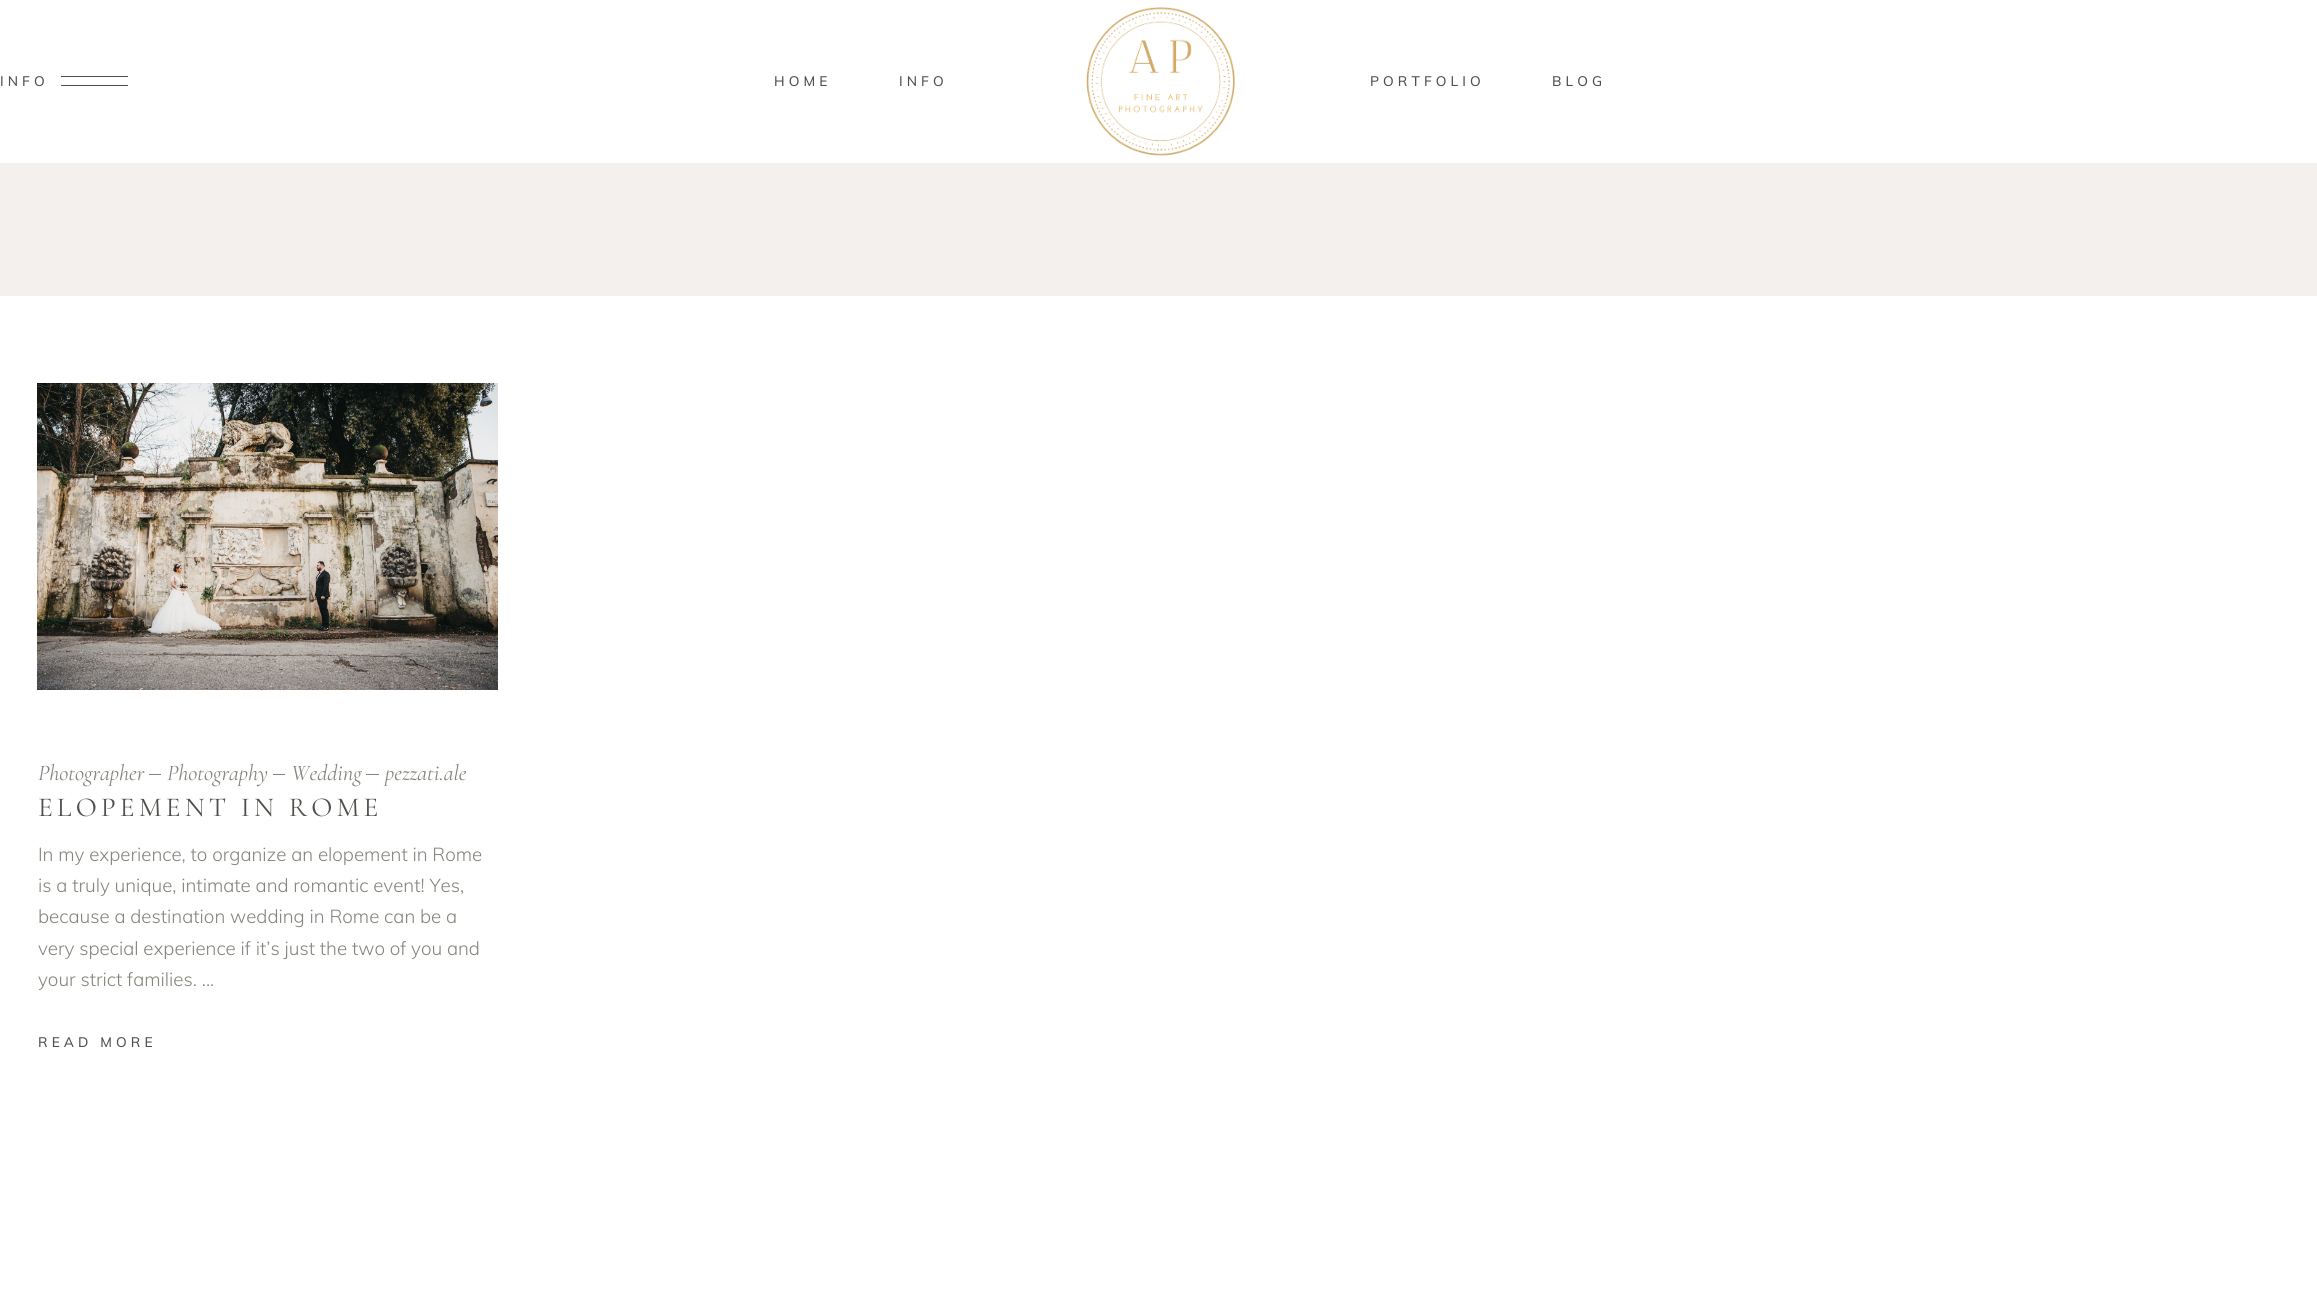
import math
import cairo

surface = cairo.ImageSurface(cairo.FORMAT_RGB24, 2317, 1295)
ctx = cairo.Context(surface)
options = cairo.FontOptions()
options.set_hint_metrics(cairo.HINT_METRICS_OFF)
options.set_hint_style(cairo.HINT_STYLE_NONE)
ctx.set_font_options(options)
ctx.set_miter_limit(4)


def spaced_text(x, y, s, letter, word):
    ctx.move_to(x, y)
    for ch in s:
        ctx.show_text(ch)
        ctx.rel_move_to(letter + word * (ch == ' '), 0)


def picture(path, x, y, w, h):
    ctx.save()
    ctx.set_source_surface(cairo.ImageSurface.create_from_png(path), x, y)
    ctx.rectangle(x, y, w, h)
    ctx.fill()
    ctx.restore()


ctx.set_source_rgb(1, 1, 1)
ctx.paint()
ctx.select_font_face("Muli Medium")
ctx.set_font_size(13.75)
ctx.set_source_rgb(0.302, 0.314, 0.29)
spaced_text(0, 86, "INFO", 4.1, 0)
ctx.rectangle(61, 76, 67, 1)
ctx.fill()
ctx.rectangle(61, 85, 67, 1)
ctx.fill()
spaced_text(774, 86, "HOME", 4.1, 0)
spaced_text(899, 86, "INFO", 4.1, 0)
picture("img1.png", 1086, 7, 149, 149)
spaced_text(1370, 86, "PORTFOLIO", 4.1, 0)
spaced_text(1552, 86, "BLOG", 4.1, 0)
ctx.set_source_rgb(0.957, 0.941, 0.929)
ctx.rectangle(0, 163, 2317, 133)
ctx.fill()
picture("img2.png", 37, 383, 461, 307)
ctx.select_font_face("Cormorant Garamond", cairo.FONT_SLANT_ITALIC)
ctx.set_font_size(22.5)
ctx.set_source_rgb(0.518, 0.518, 0.486)
ctx.move_to(38, 780)
ctx.show_text("Photographer")
ctx.rectangle(149, 774, 12, 1)
ctx.fill()
ctx.move_to(167, 780)
ctx.show_text("Photography")
ctx.rectangle(273, 774, 12, 1)
ctx.fill()
ctx.move_to(291, 780)
ctx.show_text("Wedding")
ctx.rectangle(366, 774, 13, 1)
ctx.fill()
ctx.move_to(385, 780)
ctx.show_text("pezzati.ale")
ctx.select_font_face("Cormorant Garamond")
ctx.set_font_size(27.5)
ctx.set_source_rgb(0.302, 0.314, 0.29)
spaced_text(38, 816, "ELOPEMENT IN ROME", 4.1, 0)
ctx.select_font_face("Muli Light")
ctx.set_font_size(18.75)
ctx.set_source_rgb(0.518, 0.518, 0.486)
ctx.move_to(38, 861)
ctx.show_text("In my experience, to organize an elopement in Rome")
ctx.move_to(38, 892)
ctx.show_text("is a truly unique, intimate and romantic event! Yes,")
ctx.move_to(38, 923)
ctx.show_text("because a destination wedding in Rome can be a")
ctx.move_to(38, 955)
ctx.show_text("very special experience if it’s just the two of you and")
ctx.move_to(38, 986)
ctx.show_text("your strict families. ...")
ctx.select_font_face("Muli Medium")
ctx.set_font_size(13.75)
ctx.set_source_rgb(0.302, 0.314, 0.29)
spaced_text(38, 1047, "READ MORE", 4.1, 0)
surface.write_to_png("page.png")
